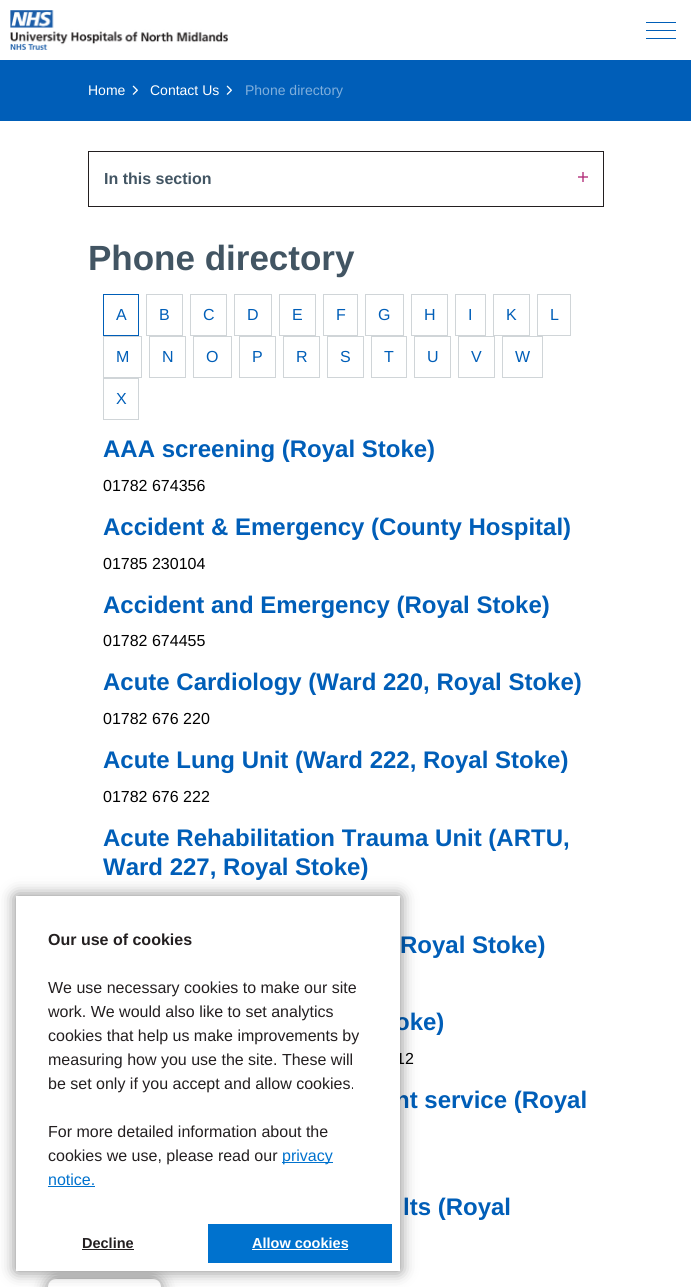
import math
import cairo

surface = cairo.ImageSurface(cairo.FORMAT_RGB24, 691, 1287)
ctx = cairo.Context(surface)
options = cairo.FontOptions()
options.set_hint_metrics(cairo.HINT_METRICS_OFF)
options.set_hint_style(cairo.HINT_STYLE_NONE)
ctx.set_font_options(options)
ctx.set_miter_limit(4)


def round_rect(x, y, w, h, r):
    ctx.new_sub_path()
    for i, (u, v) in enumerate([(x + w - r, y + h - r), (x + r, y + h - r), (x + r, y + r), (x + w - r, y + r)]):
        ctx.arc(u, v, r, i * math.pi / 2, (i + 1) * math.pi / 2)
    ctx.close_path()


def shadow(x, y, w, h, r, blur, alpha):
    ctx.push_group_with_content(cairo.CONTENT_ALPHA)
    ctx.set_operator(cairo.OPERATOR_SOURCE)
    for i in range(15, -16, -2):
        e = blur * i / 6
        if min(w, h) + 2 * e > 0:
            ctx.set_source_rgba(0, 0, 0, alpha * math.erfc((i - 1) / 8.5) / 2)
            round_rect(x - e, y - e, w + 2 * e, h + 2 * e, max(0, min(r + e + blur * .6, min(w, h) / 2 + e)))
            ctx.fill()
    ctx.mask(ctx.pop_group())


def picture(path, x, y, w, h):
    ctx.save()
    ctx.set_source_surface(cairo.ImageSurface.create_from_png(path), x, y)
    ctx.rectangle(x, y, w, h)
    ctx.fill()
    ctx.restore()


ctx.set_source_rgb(1, 1, 1)
ctx.paint()
picture("img1.png", 10, 10, 218, 40)
ctx.set_source_rgb(0, 0.369, 0.722)
ctx.rectangle(646, 30, 30, 1)
ctx.fill()
ctx.rectangle(646, 22, 30, 1)
ctx.fill()
ctx.rectangle(646, 38, 30, 1)
ctx.fill()
ctx.rectangle(0, 60, 691, 61)
ctx.fill()
ctx.select_font_face("Liberation Sans")
ctx.set_font_size(14)
ctx.set_source_rgb(1, 1, 1)
ctx.move_to(88, 95)
ctx.show_text("Home")
picture("img2.png", 132, 85, 6, 10)
ctx.move_to(150, 95)
ctx.show_text("Contact Us")
picture("img2.png", 226, 85, 6, 10)
ctx.set_source_rgb(0.502, 0.686, 0.863)
ctx.move_to(245, 95)
ctx.show_text("Phone directory")
ctx.rectangle(88.5, 151.5, 515, 55)
ctx.set_source_rgb(0.137, 0.122, 0.125)
ctx.set_line_width(1)
ctx.stroke()
ctx.select_font_face("Liberation Sans", cairo.FONT_SLANT_NORMAL, cairo.FONT_WEIGHT_BOLD)
ctx.set_font_size(16)
ctx.set_source_rgb(0.259, 0.333, 0.388)
ctx.move_to(104, 184)
ctx.show_text("In this section")
picture("img3.png", 578, 172, 10, 10)
ctx.set_font_size(35)
ctx.move_to(88, 270)
ctx.show_text("Phone directory")
ctx.rectangle(103.5, 294.5, 35, 41)
ctx.set_source_rgb(0, 0.369, 0.722)
ctx.stroke()
ctx.select_font_face("Liberation Sans")
ctx.set_font_size(16)
ctx.move_to(116, 320)
ctx.show_text("A")
ctx.rectangle(146.5, 294.5, 36, 41)
ctx.set_source_rgb(0.816, 0.835, 0.847)
ctx.stroke()
ctx.set_source_rgb(0, 0.369, 0.722)
ctx.move_to(159, 320)
ctx.show_text("B")
ctx.rectangle(190.5, 294.5, 36, 41)
ctx.set_source_rgb(0.816, 0.835, 0.847)
ctx.stroke()
ctx.set_source_rgb(0, 0.369, 0.722)
ctx.move_to(203, 320)
ctx.show_text("C")
ctx.rectangle(234.5, 294.5, 37, 41)
ctx.set_source_rgb(0.816, 0.835, 0.847)
ctx.stroke()
ctx.set_source_rgb(0, 0.369, 0.722)
ctx.move_to(247, 320)
ctx.show_text("D")
ctx.rectangle(279.5, 294.5, 36, 41)
ctx.set_source_rgb(0.816, 0.835, 0.847)
ctx.stroke()
ctx.set_source_rgb(0, 0.369, 0.722)
ctx.move_to(292, 320)
ctx.show_text("E")
ctx.rectangle(323.5, 294.5, 34, 41)
ctx.set_source_rgb(0.816, 0.835, 0.847)
ctx.stroke()
ctx.set_source_rgb(0, 0.369, 0.722)
ctx.move_to(336, 320)
ctx.show_text("F")
ctx.rectangle(365.5, 294.5, 38, 41)
ctx.set_source_rgb(0.816, 0.835, 0.847)
ctx.stroke()
ctx.set_source_rgb(0, 0.369, 0.722)
ctx.move_to(378, 320)
ctx.show_text("G")
ctx.rectangle(411.5, 294.5, 36, 41)
ctx.set_source_rgb(0.816, 0.835, 0.847)
ctx.stroke()
ctx.set_source_rgb(0, 0.369, 0.722)
ctx.move_to(424, 320)
ctx.show_text("H")
ctx.rectangle(455.5, 294.5, 30, 41)
ctx.set_source_rgb(0.816, 0.835, 0.847)
ctx.stroke()
ctx.set_source_rgb(0, 0.369, 0.722)
ctx.move_to(468, 320)
ctx.show_text("I")
ctx.rectangle(493.5, 294.5, 36, 41)
ctx.set_source_rgb(0.816, 0.835, 0.847)
ctx.stroke()
ctx.set_source_rgb(0, 0.369, 0.722)
ctx.move_to(506, 320)
ctx.show_text("K")
ctx.rectangle(537.5, 294.5, 33, 41)
ctx.set_source_rgb(0.816, 0.835, 0.847)
ctx.stroke()
ctx.set_source_rgb(0, 0.369, 0.722)
ctx.move_to(550, 320)
ctx.show_text("L")
ctx.rectangle(103.5, 336.5, 38, 41)
ctx.set_source_rgb(0.816, 0.835, 0.847)
ctx.stroke()
ctx.set_source_rgb(0, 0.369, 0.722)
ctx.move_to(116, 362)
ctx.show_text("M")
ctx.rectangle(149.5, 336.5, 36, 41)
ctx.set_source_rgb(0.816, 0.835, 0.847)
ctx.stroke()
ctx.set_source_rgb(0, 0.369, 0.722)
ctx.move_to(162, 362)
ctx.show_text("N")
ctx.rectangle(193.5, 336.5, 38, 41)
ctx.set_source_rgb(0.816, 0.835, 0.847)
ctx.stroke()
ctx.set_source_rgb(0, 0.369, 0.722)
ctx.move_to(206, 362)
ctx.show_text("O")
ctx.rectangle(239.5, 336.5, 36, 41)
ctx.set_source_rgb(0.816, 0.835, 0.847)
ctx.stroke()
ctx.set_source_rgb(0, 0.369, 0.722)
ctx.move_to(252, 362)
ctx.show_text("P")
ctx.rectangle(283.5, 336.5, 36, 41)
ctx.set_source_rgb(0.816, 0.835, 0.847)
ctx.stroke()
ctx.set_source_rgb(0, 0.369, 0.722)
ctx.move_to(296, 362)
ctx.show_text("R")
ctx.rectangle(327.5, 336.5, 36, 41)
ctx.set_source_rgb(0.816, 0.835, 0.847)
ctx.stroke()
ctx.set_source_rgb(0, 0.369, 0.722)
ctx.move_to(340, 362)
ctx.show_text("S")
ctx.rectangle(371.5, 336.5, 35, 41)
ctx.set_source_rgb(0.816, 0.835, 0.847)
ctx.stroke()
ctx.set_source_rgb(0, 0.369, 0.722)
ctx.move_to(384, 362)
ctx.show_text("T")
ctx.rectangle(414.5, 336.5, 36, 41)
ctx.set_source_rgb(0.816, 0.835, 0.847)
ctx.stroke()
ctx.set_source_rgb(0, 0.369, 0.722)
ctx.move_to(427, 362)
ctx.show_text("U")
ctx.rectangle(458.5, 336.5, 36, 41)
ctx.set_source_rgb(0.816, 0.835, 0.847)
ctx.stroke()
ctx.set_source_rgb(0, 0.369, 0.722)
ctx.move_to(471, 362)
ctx.show_text("V")
ctx.rectangle(502.5, 336.5, 40, 41)
ctx.set_source_rgb(0.816, 0.835, 0.847)
ctx.stroke()
ctx.set_source_rgb(0, 0.369, 0.722)
ctx.move_to(515, 362)
ctx.show_text("W")
ctx.rectangle(103.5, 378.5, 35, 41)
ctx.set_source_rgb(0.816, 0.835, 0.847)
ctx.stroke()
ctx.set_source_rgb(0, 0.369, 0.722)
ctx.move_to(116, 404)
ctx.show_text("X")
ctx.select_font_face("Liberation Sans", cairo.FONT_SLANT_NORMAL, cairo.FONT_WEIGHT_BOLD)
ctx.set_font_size(24)
ctx.move_to(103, 457)
ctx.show_text("AAA screening (Royal Stoke)")
ctx.select_font_face("Liberation Sans")
ctx.set_font_size(16)
ctx.set_source_rgb(0, 0, 0)
ctx.move_to(103, 491)
ctx.show_text("01782 674356")
ctx.select_font_face("Liberation Sans", cairo.FONT_SLANT_NORMAL, cairo.FONT_WEIGHT_BOLD)
ctx.set_font_size(24)
ctx.set_source_rgb(0, 0.369, 0.722)
ctx.move_to(103, 535)
ctx.show_text("Accident & Emergency (County Hospital)")
ctx.select_font_face("Liberation Sans")
ctx.set_font_size(16)
ctx.set_source_rgb(0, 0, 0)
ctx.move_to(103, 569)
ctx.show_text("01785 230104")
ctx.select_font_face("Liberation Sans", cairo.FONT_SLANT_NORMAL, cairo.FONT_WEIGHT_BOLD)
ctx.set_font_size(24)
ctx.set_source_rgb(0, 0.369, 0.722)
ctx.move_to(103, 613)
ctx.show_text("Accident and Emergency (Royal Stoke)")
ctx.select_font_face("Liberation Sans")
ctx.set_font_size(16)
ctx.set_source_rgb(0, 0, 0)
ctx.move_to(103, 646)
ctx.show_text("01782 674455")
ctx.select_font_face("Liberation Sans", cairo.FONT_SLANT_NORMAL, cairo.FONT_WEIGHT_BOLD)
ctx.set_font_size(24)
ctx.set_source_rgb(0, 0.369, 0.722)
ctx.move_to(103, 690)
ctx.show_text("Acute Cardiology (Ward 220, Royal Stoke)")
ctx.select_font_face("Liberation Sans")
ctx.set_font_size(16)
ctx.set_source_rgb(0, 0, 0)
ctx.move_to(103, 724)
ctx.show_text("01782 676 220")
ctx.select_font_face("Liberation Sans", cairo.FONT_SLANT_NORMAL, cairo.FONT_WEIGHT_BOLD)
ctx.set_font_size(24)
ctx.set_source_rgb(0, 0.369, 0.722)
ctx.move_to(103, 768)
ctx.show_text("Acute Lung Unit (Ward 222, Royal Stoke)")
ctx.select_font_face("Liberation Sans")
ctx.set_font_size(16)
ctx.set_source_rgb(0, 0, 0)
ctx.move_to(103, 802)
ctx.show_text("01782 676 222")
ctx.select_font_face("Liberation Sans", cairo.FONT_SLANT_NORMAL, cairo.FONT_WEIGHT_BOLD)
ctx.set_font_size(24)
ctx.set_source_rgb(0, 0.369, 0.722)
ctx.move_to(103, 846)
ctx.show_text("Acute Rehabilitation Trauma Unit (ARTU,")
ctx.move_to(103, 875)
ctx.show_text("Ward 227, Royal Stoke)")
ctx.move_to(400, 953)
ctx.show_text("Royal Stoke)")
ctx.move_to(395, 1030)
ctx.show_text("oke)")
ctx.select_font_face("Liberation Sans")
ctx.set_font_size(16)
ctx.set_source_rgb(0, 0, 0)
ctx.move_to(396, 1064)
ctx.show_text("12")
ctx.select_font_face("Liberation Sans", cairo.FONT_SLANT_NORMAL, cairo.FONT_WEIGHT_BOLD)
ctx.set_font_size(24)
ctx.set_source_rgb(0, 0.369, 0.722)
ctx.move_to(395, 1108)
ctx.show_text("nt service (Royal")
ctx.move_to(403, 1215)
ctx.show_text("lts (Royal")
ctx.set_source_rgb(0, 0, 0)
shadow(48, 1279, 113, 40, 8, 8, 0.5)
ctx.set_source_rgb(1, 1, 1)
ctx.new_path()
ctx.move_to(56, 1279)
ctx.line_to(153, 1279)
ctx.curve_to(157.5, 1279, 161, 1282.5, 161, 1287)
ctx.line_to(161, 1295)
ctx.line_to(48, 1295)
ctx.line_to(48, 1287)
ctx.curve_to(48, 1282.5, 51.5, 1279, 56, 1279)
ctx.close_path()
ctx.fill()
ctx.set_source_rgb(0, 0, 0)
shadow(16, 896, 384, 375, 0, 8, 0.5)
ctx.set_source_rgb(1, 1, 1)
ctx.rectangle(16, 896, 384, 375)
ctx.fill()
ctx.set_font_size(16)
ctx.set_source_rgb(0.137, 0.122, 0.125)
ctx.move_to(48, 945)
ctx.show_text("Our use of cookies")
ctx.select_font_face("Liberation Sans")
ctx.move_to(48, 993)
ctx.show_text("We use necessary cookies to make our site")
ctx.move_to(48, 1017)
ctx.show_text("work. We would also like to set analytics")
ctx.move_to(48, 1041)
ctx.show_text("cookies that help us make improvements by")
ctx.move_to(48, 1065)
ctx.show_text("measuring how you use the site. These will")
ctx.move_to(48, 1089)
ctx.show_text("be set only if you accept and allow cookies.")
ctx.move_to(48, 1137)
ctx.show_text("For more detailed information about the")
ctx.move_to(48, 1161)
ctx.show_text("cookies we use, please read our")
ctx.set_source_rgb(0, 0.447, 0.808)
ctx.rectangle(282, 1162, 51, 1)
ctx.fill()
ctx.move_to(282, 1161)
ctx.show_text("privacy")
ctx.move_to(48, 1185)
ctx.show_text("notice.")
ctx.rectangle(48, 1186, 47, 1)
ctx.fill()
ctx.select_font_face("Liberation Sans", cairo.FONT_SLANT_NORMAL, cairo.FONT_WEIGHT_BOLD)
ctx.set_font_size(14.5)
ctx.set_source_rgb(0.137, 0.122, 0.125)
ctx.move_to(82, 1248)
ctx.show_text("Decline")
ctx.rectangle(82, 1249, 52, 1)
ctx.fill()
ctx.set_source_rgb(0, 0.447, 0.808)
ctx.rectangle(208, 1224, 184, 39)
ctx.fill()
ctx.set_source_rgb(1, 1, 1)
ctx.move_to(252, 1248)
ctx.show_text("Allow cookies")
ctx.rectangle(252, 1249, 96, 1)
ctx.fill()
surface.write_to_png("page.png")
